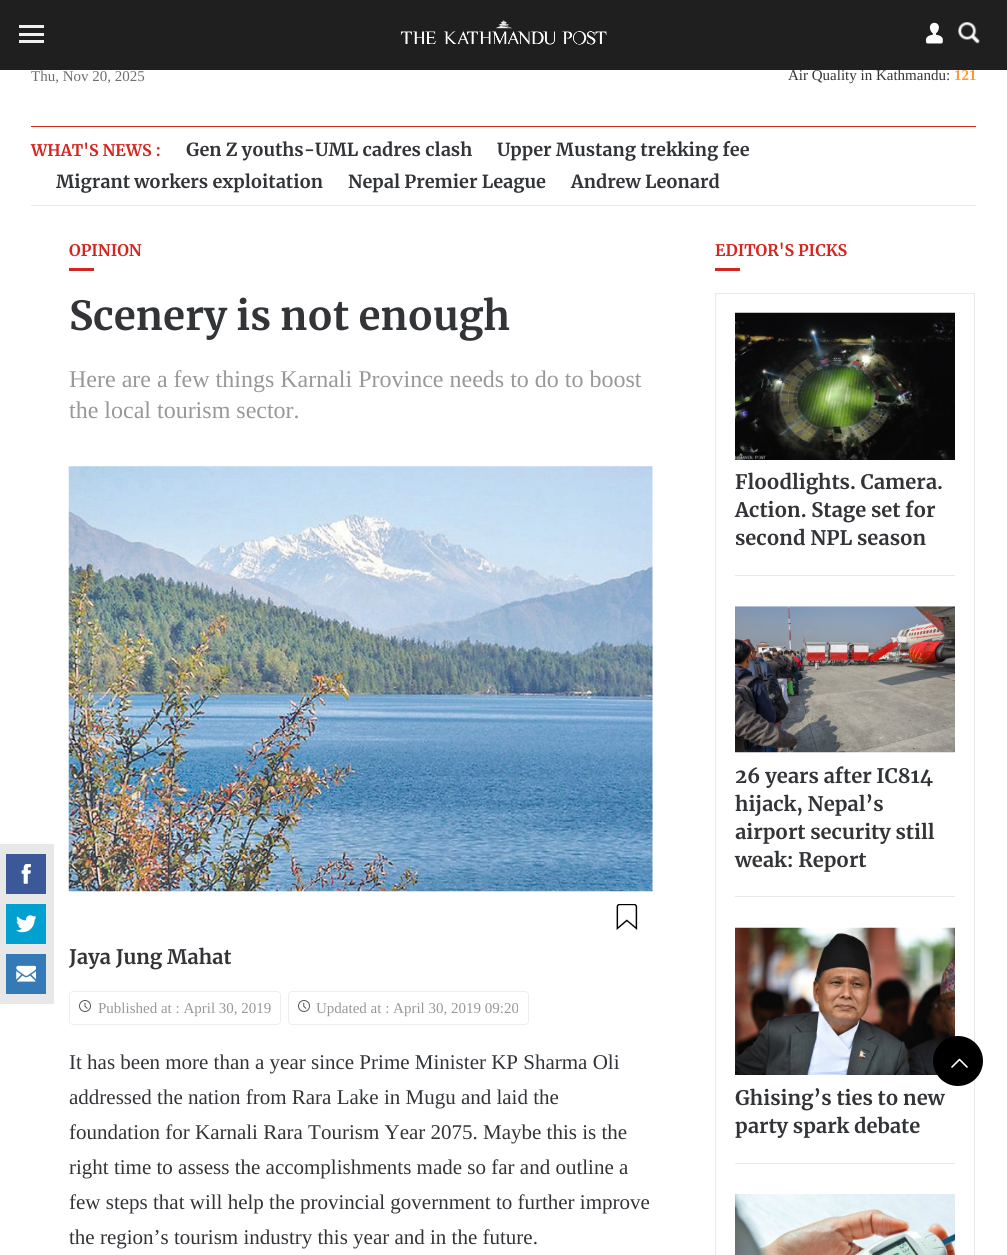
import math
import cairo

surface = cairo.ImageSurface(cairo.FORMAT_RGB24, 1007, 1255)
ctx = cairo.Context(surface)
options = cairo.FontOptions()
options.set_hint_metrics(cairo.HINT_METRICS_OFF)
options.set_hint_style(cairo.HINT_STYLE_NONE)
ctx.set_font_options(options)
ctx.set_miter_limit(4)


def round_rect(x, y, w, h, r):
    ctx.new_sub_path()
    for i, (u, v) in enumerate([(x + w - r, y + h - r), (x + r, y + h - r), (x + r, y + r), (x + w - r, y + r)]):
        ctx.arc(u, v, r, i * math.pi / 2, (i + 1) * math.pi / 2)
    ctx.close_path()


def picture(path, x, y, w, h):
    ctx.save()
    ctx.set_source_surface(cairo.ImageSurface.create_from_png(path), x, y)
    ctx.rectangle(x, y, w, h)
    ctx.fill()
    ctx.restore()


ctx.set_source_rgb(1, 1, 1)
ctx.paint()
ctx.select_font_face("Liberation Serif")
ctx.set_font_size(15)
ctx.set_source_rgb(0.196, 0.204, 0.216)
ctx.move_to(788, 80)
ctx.show_text("Air Quality in Kathmandu:")
ctx.set_source_rgb(0.122, 0.122, 0.122)
ctx.rectangle(0, 0, 1007, 70)
ctx.fill()
ctx.set_source_rgb(0.941, 0.941, 0.941)
ctx.rectangle(19, 25, 25, 3)
ctx.fill()
ctx.rectangle(19, 33, 25, 3)
ctx.fill()
ctx.rectangle(19, 40, 25, 3)
ctx.fill()
picture("img1.png", 926, 22, 17, 22)
picture("img2.png", 958, 22, 22, 22)
picture("img3.png", 400, 20, 207, 25)
ctx.set_source_rgb(0.427, 0.431, 0.443)
ctx.move_to(31, 81)
ctx.show_text("Thu, Nov 20, 2025")
ctx.select_font_face("Liberation Serif", cairo.FONT_SLANT_NORMAL, cairo.FONT_WEIGHT_BOLD)
ctx.set_source_rgb(1, 0.6, 0.2)
ctx.move_to(954, 80)
ctx.show_text("121")
ctx.set_source_rgb(0.831, 0.149, 0.125)
ctx.rectangle(31, 126, 945, 1)
ctx.fill()
ctx.set_source_rgb(0.914, 0.914, 0.914)
ctx.rectangle(31, 205, 945, 1)
ctx.fill()
ctx.select_font_face("Merriweather", cairo.FONT_SLANT_NORMAL, cairo.FONT_WEIGHT_BOLD)
ctx.set_font_size(16)
ctx.set_source_rgb(0.831, 0.149, 0.125)
ctx.move_to(31, 156)
ctx.show_text("WHAT'S NEWS :")
ctx.set_font_size(18)
ctx.set_source_rgb(0.196, 0.204, 0.216)
ctx.move_to(186, 156)
ctx.show_text("Gen Z youths-UML cadres clash")
ctx.move_to(497, 156)
ctx.show_text("Upper Mustang trekking fee")
ctx.move_to(56, 188)
ctx.show_text("Migrant workers exploitation")
ctx.move_to(348, 188)
ctx.show_text("Nepal Premier League")
ctx.move_to(571, 188)
ctx.show_text("Andrew Leonard")
ctx.set_font_size(16)
ctx.set_source_rgb(0.831, 0.149, 0.125)
ctx.move_to(69, 256)
ctx.show_text("OPINION")
ctx.rectangle(69, 268, 25, 3)
ctx.fill()
ctx.set_font_size(40)
ctx.set_source_rgb(0.196, 0.204, 0.216)
ctx.move_to(69, 330)
ctx.show_text("Scenery is not enough")
ctx.select_font_face("Liberation Serif")
ctx.set_font_size(24)
ctx.set_source_rgb(0.596, 0.596, 0.596)
ctx.move_to(69, 387)
ctx.show_text("Here are a few things Karnali Province needs to do to boost")
ctx.move_to(69, 418)
ctx.show_text("the local tourism sector.")
picture("img4.png", 68, 466, 585, 426)
picture("img5.png", 616, 904, 22, 26)
ctx.set_source_rgb(0.91, 0.91, 0.91)
ctx.rectangle(0, 844, 54, 160)
ctx.fill()
ctx.set_source_rgb(0.231, 0.349, 0.596)
ctx.rectangle(6, 854, 40, 40)
ctx.fill()
picture("img6.png", 21, 864, 10, 20)
ctx.set_source_rgb(0, 0.627, 0.82)
ctx.rectangle(6, 904, 40, 40)
ctx.fill()
picture("img7.png", 16, 915, 20, 18)
ctx.set_source_rgb(0.2, 0.478, 0.718)
ctx.rectangle(6, 954, 40, 40)
ctx.fill()
picture("img8.png", 16, 965, 20, 17)
ctx.select_font_face("Merriweather", cairo.FONT_SLANT_NORMAL, cairo.FONT_WEIGHT_BOLD)
ctx.set_font_size(20)
ctx.set_source_rgb(0.196, 0.204, 0.216)
ctx.move_to(69, 964)
ctx.show_text("Jaya Jung Mahat")
round_rect(69.5, 991.5, 211, 33, 3.5)
ctx.set_source_rgb(0.933, 0.933, 0.933)
ctx.set_line_width(1)
ctx.stroke()
picture("img9.png", 79, 1000, 12, 12)
ctx.select_font_face("Liberation Serif")
ctx.set_font_size(15)
ctx.set_source_rgb(0.596, 0.596, 0.596)
ctx.move_to(98, 1013)
ctx.show_text("Published at : April 30, 2019")
round_rect(288.5, 991.5, 240, 33, 3.5)
ctx.set_source_rgb(0.933, 0.933, 0.933)
ctx.stroke()
picture("img10.png", 298, 1000, 12, 12)
ctx.set_source_rgb(0.596, 0.596, 0.596)
ctx.move_to(316, 1013)
ctx.show_text("Updated at : April 30, 2019 09:20")
ctx.set_font_size(21)
ctx.set_source_rgb(0.196, 0.204, 0.216)
ctx.move_to(69, 1069)
ctx.show_text("It has been more than a year since Prime Minister KP Sharma Oli")
ctx.move_to(69, 1104)
ctx.show_text("addressed the nation from Rara Lake in Mugu and laid the")
ctx.move_to(69, 1139)
ctx.show_text("foundation for Karnali Rara Tourism Year 2075. Maybe this is the")
ctx.move_to(69, 1174)
ctx.show_text("right time to assess the accomplishments made so far and outline a")
ctx.move_to(69, 1209)
ctx.show_text("few steps that will help the provincial government to further improve")
ctx.move_to(69, 1244)
ctx.show_text("the region’s tourism industry this year and in the future.")
ctx.select_font_face("Merriweather", cairo.FONT_SLANT_NORMAL, cairo.FONT_WEIGHT_BOLD)
ctx.set_font_size(16)
ctx.set_source_rgb(0.831, 0.149, 0.125)
ctx.move_to(715, 256)
ctx.show_text("EDITOR'S PICKS")
ctx.rectangle(715, 268, 25, 3)
ctx.fill()
ctx.rectangle(715.5, 293.5, 259, 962)
ctx.set_source_rgb(0.914, 0.914, 0.914)
ctx.stroke()
ctx.rectangle(735, 575, 220, 1)
ctx.fill()
picture("img11.png", 735, 312, 220, 148)
ctx.set_font_size(20)
ctx.set_source_rgb(0.196, 0.204, 0.216)
ctx.move_to(735, 489)
ctx.show_text("Floodlights. Camera.")
ctx.move_to(735, 517)
ctx.show_text("Action. Stage set for")
ctx.move_to(735, 545)
ctx.show_text("second NPL season")
ctx.set_source_rgb(0.914, 0.914, 0.914)
ctx.rectangle(735, 896, 220, 1)
ctx.fill()
picture("img12.png", 735, 606, 220, 147)
ctx.set_source_rgb(0.196, 0.204, 0.216)
ctx.move_to(735, 783)
ctx.show_text("26 years after IC814")
ctx.move_to(735, 811)
ctx.show_text("hijack, Nepal’s")
ctx.move_to(735, 839)
ctx.show_text("airport security still")
ctx.move_to(735, 867)
ctx.show_text("weak: Report")
ctx.set_source_rgb(0.914, 0.914, 0.914)
ctx.rectangle(735, 1163, 220, 1)
ctx.fill()
picture("img13.png", 735, 927, 220, 148)
ctx.set_source_rgb(0.196, 0.204, 0.216)
ctx.move_to(735, 1105)
ctx.show_text("Ghising’s ties to new")
ctx.move_to(735, 1133)
ctx.show_text("party spark debate")
picture("img14.png", 735, 1194, 220, 61)
ctx.set_source_rgb(0, 0, 0)
ctx.arc(958, 1061, 25, 0, 2 * math.pi)
ctx.fill()
ctx.new_path()
ctx.move_to(959.5, 1059.5)
ctx.line_to(967, 1067)
ctx.move_to(952, 1067)
ctx.line_to(959.5, 1059.5)
ctx.set_source_rgb(1, 1, 1)
ctx.set_line_width(1.6)
ctx.set_line_cap(cairo.LINE_CAP_ROUND)
ctx.set_line_join(cairo.LINE_JOIN_ROUND)
ctx.stroke()
surface.write_to_png("page.png")
